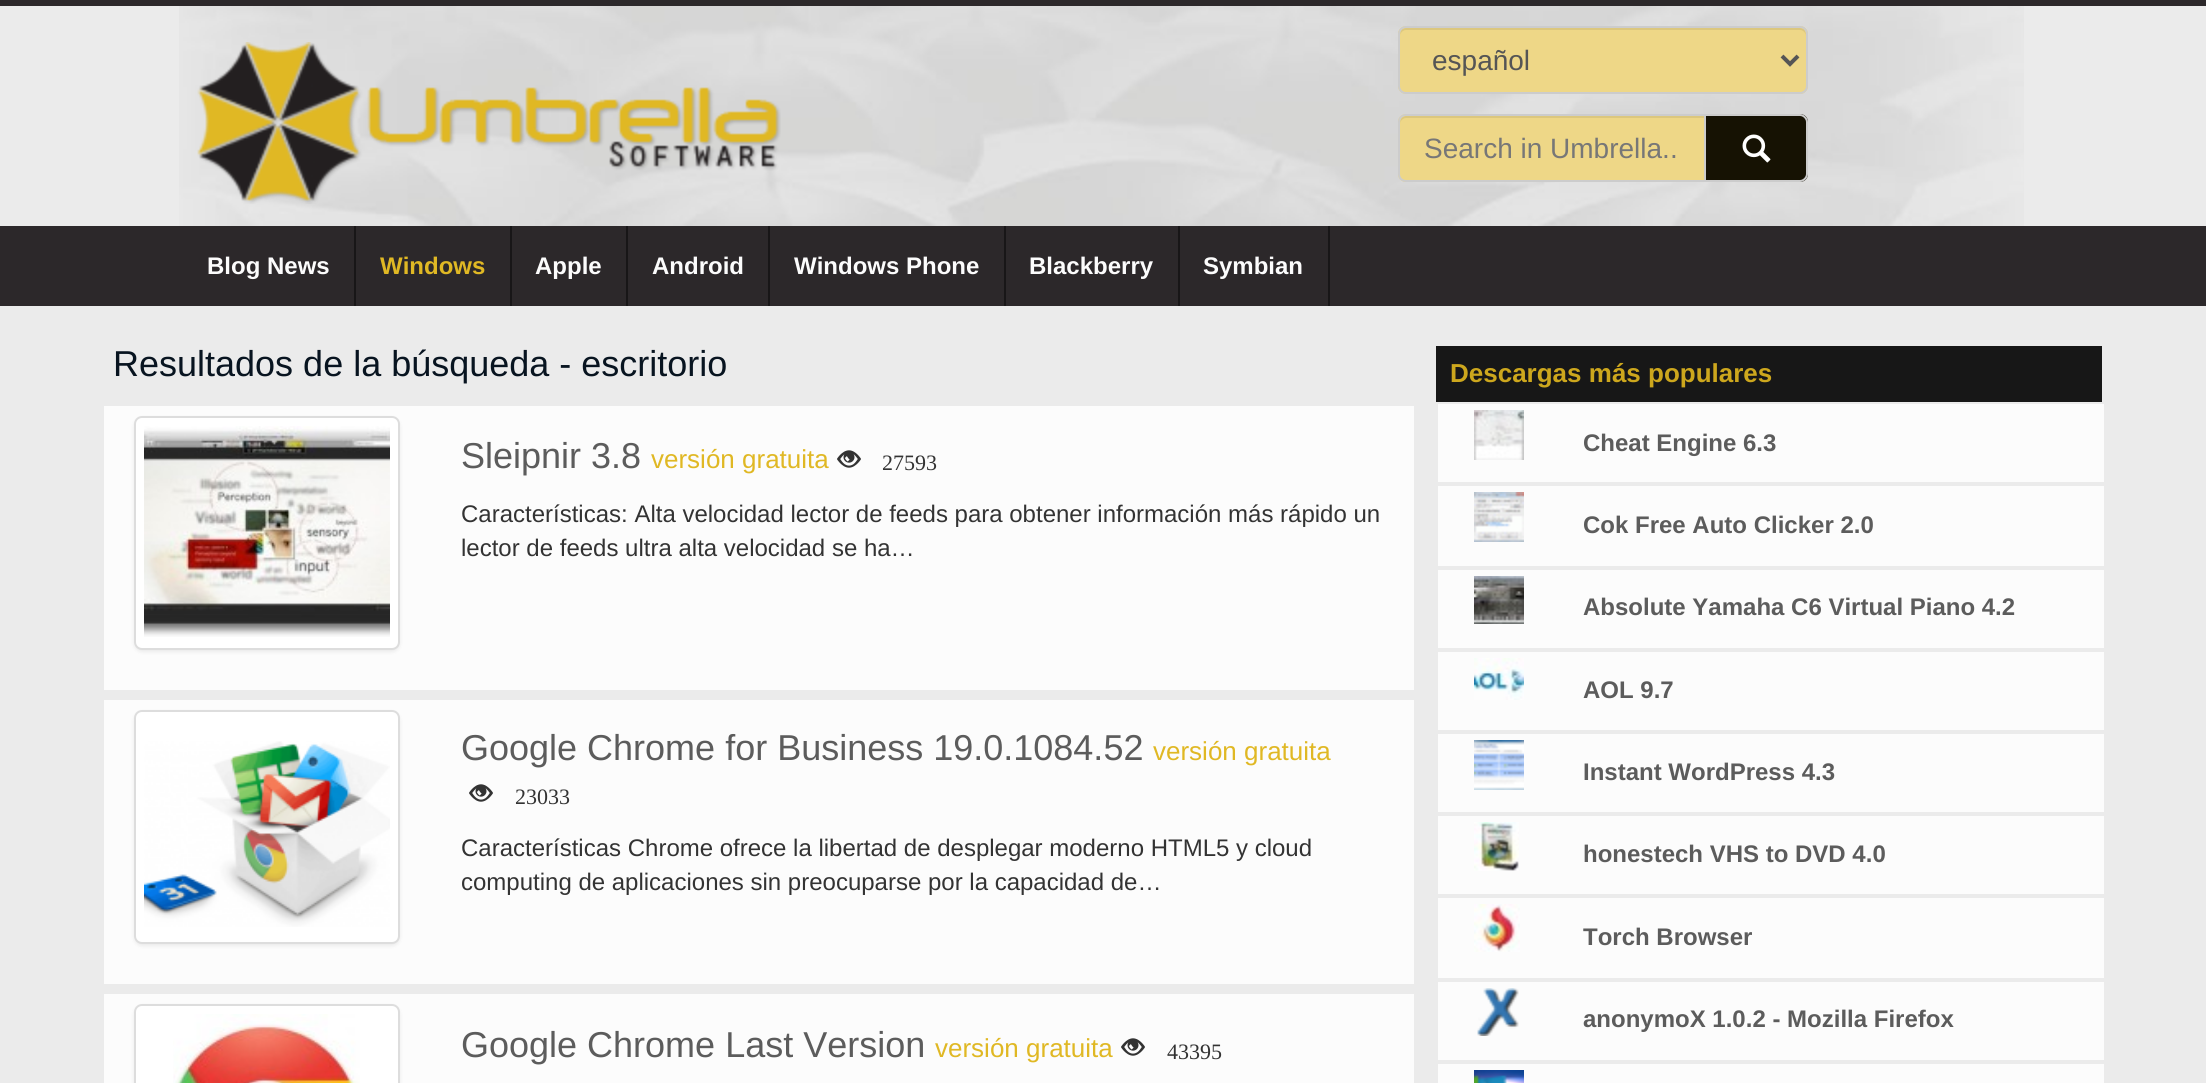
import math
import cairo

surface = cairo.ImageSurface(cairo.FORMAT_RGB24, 2206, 1083)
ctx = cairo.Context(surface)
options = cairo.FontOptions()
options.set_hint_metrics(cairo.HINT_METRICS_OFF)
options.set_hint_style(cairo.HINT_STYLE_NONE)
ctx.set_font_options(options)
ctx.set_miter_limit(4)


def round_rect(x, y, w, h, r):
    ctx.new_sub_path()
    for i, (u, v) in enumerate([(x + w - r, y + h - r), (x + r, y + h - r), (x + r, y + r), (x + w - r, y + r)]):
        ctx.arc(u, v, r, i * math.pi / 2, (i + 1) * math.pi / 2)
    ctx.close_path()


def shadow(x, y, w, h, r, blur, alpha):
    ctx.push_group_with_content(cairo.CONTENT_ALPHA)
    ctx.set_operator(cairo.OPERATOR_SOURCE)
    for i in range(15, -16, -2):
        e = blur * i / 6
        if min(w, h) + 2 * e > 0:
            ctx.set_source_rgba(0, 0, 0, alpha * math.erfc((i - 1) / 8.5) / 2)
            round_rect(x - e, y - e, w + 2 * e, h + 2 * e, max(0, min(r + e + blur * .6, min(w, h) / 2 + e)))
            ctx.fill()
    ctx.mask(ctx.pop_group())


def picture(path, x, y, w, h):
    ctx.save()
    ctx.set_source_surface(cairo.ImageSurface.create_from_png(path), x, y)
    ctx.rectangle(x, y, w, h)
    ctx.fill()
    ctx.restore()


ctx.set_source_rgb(0.918, 0.918, 0.918)
ctx.paint()
ctx.set_source_rgb(0.173, 0.157, 0.165)
ctx.rectangle(0, 0, 2206, 6)
ctx.fill()
picture("img1.png", 179, 6, 1845, 220)
picture("img2.png", 197, 42, 584, 162)
ctx.set_source_rgb(0.933, 0.843, 0.529)
round_rect(1398, 26, 410, 68, 8)
ctx.fill()
ctx.set_source_rgb(0.863, 0.78, 0.49)
ctx.new_path()
ctx.move_to(1406, 30)
ctx.line_to(1800, 30)
ctx.curve_to(1803, 30, 1806, 33, 1806, 36)
ctx.curve_to(1806, 32, 1805, 28, 1800, 28)
ctx.line_to(1406, 28)
ctx.curve_to(1401, 28, 1400, 32, 1400, 36)
ctx.curve_to(1400, 33, 1403, 30, 1406, 30)
ctx.close_path()
ctx.fill()
round_rect(1399, 27, 408, 66, 7)
ctx.set_source_rgb(0.8, 0.8, 0.8)
ctx.stroke()
ctx.new_path()
ctx.move_to(1782, 56)
ctx.line_to(1790, 64)
ctx.line_to(1798, 56)
ctx.set_source_rgb(0.333, 0.333, 0.333)
ctx.set_line_width(4)
ctx.stroke()
ctx.select_font_face("Liberation Sans")
ctx.set_font_size(28)
ctx.move_to(1432, 70)
ctx.show_text("español")
ctx.set_source_rgb(0.933, 0.843, 0.529)
ctx.new_path()
ctx.move_to(1406, 114)
ctx.line_to(1706, 114)
ctx.line_to(1706, 182)
ctx.line_to(1406, 182)
ctx.curve_to(1401.5, 182, 1398, 178.5, 1398, 174)
ctx.line_to(1398, 122)
ctx.curve_to(1398, 117.5, 1401.5, 114, 1406, 114)
ctx.close_path()
ctx.fill()
ctx.set_source_rgb(0.863, 0.78, 0.49)
ctx.new_path()
ctx.move_to(1406, 118)
ctx.line_to(1704, 118)
ctx.line_to(1704, 116)
ctx.line_to(1405, 116)
ctx.curve_to(1401, 117, 1400, 121, 1400, 124)
ctx.curve_to(1400, 121, 1403, 118, 1406, 118)
ctx.close_path()
ctx.fill()
ctx.new_path()
ctx.move_to(1406, 115)
ctx.line_to(1705, 115)
ctx.line_to(1705, 181)
ctx.line_to(1406, 181)
ctx.curve_to(1402, 181, 1399, 178, 1399, 174)
ctx.line_to(1399, 122)
ctx.curve_to(1399, 118, 1402, 115, 1406, 115)
ctx.close_path()
ctx.set_source_rgb(0.8, 0.8, 0.8)
ctx.set_line_width(2)
ctx.stroke()
ctx.set_source_rgb(0.467, 0.467, 0.467)
ctx.move_to(1424, 158)
ctx.show_text("Search in Umbrella..")
ctx.set_source_rgb(0.086, 0.071, 0.012)
ctx.new_path()
ctx.move_to(1706, 114)
ctx.line_to(1800, 114)
ctx.curve_to(1804.5, 114, 1808, 117.5, 1808, 122)
ctx.line_to(1808, 174)
ctx.curve_to(1808, 178.5, 1804.5, 182, 1800, 182)
ctx.line_to(1706, 182)
ctx.close_path()
ctx.fill()
ctx.set_source_rgb(0.8, 0.8, 0.8)
ctx.set_fill_rule(cairo.FILL_RULE_EVEN_ODD)
ctx.new_path()
ctx.move_to(1706, 114)
ctx.line_to(1800, 114)
ctx.curve_to(1804, 114, 1808, 118, 1808, 122)
ctx.line_to(1808, 174)
ctx.curve_to(1808, 178, 1804, 182, 1800, 182)
ctx.line_to(1706, 182)
ctx.close_path()
ctx.move_to(1706, 116)
ctx.line_to(1800, 116)
ctx.curve_to(1803, 116, 1806, 119, 1806, 122)
ctx.line_to(1806, 174)
ctx.curve_to(1806, 177, 1803, 180, 1800, 180)
ctx.line_to(1706, 180)
ctx.close_path()
ctx.fill()
picture("img3.png", 1742, 134, 29, 29)
ctx.set_source_rgb(0.173, 0.157, 0.165)
ctx.rectangle(0, 226, 2206, 80)
ctx.fill()
ctx.set_source_rgb(0.094, 0.086, 0.09)
ctx.rectangle(354, 226, 2, 80)
ctx.fill()
ctx.select_font_face("Liberation Sans", cairo.FONT_SLANT_NORMAL, cairo.FONT_WEIGHT_BOLD)
ctx.set_font_size(24)
ctx.set_source_rgb(0.988, 0.988, 0.988)
ctx.move_to(207, 274)
ctx.show_text("Blog News")
ctx.set_source_rgb(0.094, 0.086, 0.09)
ctx.rectangle(510, 226, 2, 80)
ctx.fill()
ctx.set_source_rgb(0.878, 0.722, 0.141)
ctx.move_to(380, 274)
ctx.show_text("Windows")
ctx.set_source_rgb(0.094, 0.086, 0.09)
ctx.rectangle(626, 226, 2, 80)
ctx.fill()
ctx.set_source_rgb(0.988, 0.988, 0.988)
ctx.move_to(535, 274)
ctx.show_text("Apple")
ctx.set_source_rgb(0.094, 0.086, 0.09)
ctx.rectangle(768, 226, 2, 80)
ctx.fill()
ctx.set_source_rgb(0.988, 0.988, 0.988)
ctx.move_to(652, 274)
ctx.show_text("Android")
ctx.set_source_rgb(0.094, 0.086, 0.09)
ctx.rectangle(1004, 226, 2, 80)
ctx.fill()
ctx.set_source_rgb(0.988, 0.988, 0.988)
ctx.move_to(794, 274)
ctx.show_text("Windows Phone")
ctx.set_source_rgb(0.094, 0.086, 0.09)
ctx.rectangle(1178, 226, 2, 80)
ctx.fill()
ctx.set_source_rgb(0.988, 0.988, 0.988)
ctx.move_to(1029, 274)
ctx.show_text("Blackberry")
ctx.set_source_rgb(0.094, 0.086, 0.09)
ctx.rectangle(1328, 226, 2, 80)
ctx.fill()
ctx.set_source_rgb(0.988, 0.988, 0.988)
ctx.move_to(1203, 274)
ctx.show_text("Symbian")
ctx.select_font_face("Liberation Sans")
ctx.set_font_size(36)
ctx.set_source_rgb(0.035, 0.082, 0.125)
ctx.move_to(113, 376)
ctx.show_text("Resultados de la búsqueda - escritorio")
ctx.set_source_rgb(0.988, 0.988, 0.988)
ctx.rectangle(104, 406, 1310, 284)
ctx.fill()
ctx.set_source_rgb(0, 0, 0)
shadow(134, 418, 266, 234, 8, 2, 0.07)
ctx.set_source_rgb(1, 1, 1)
round_rect(135, 417, 264, 232, 7)
ctx.fill_preserve()
ctx.set_source_rgb(0.867, 0.867, 0.867)
ctx.stroke()
picture("img4.png", 144, 426, 246, 211)
ctx.set_source_rgb(0.361, 0.361, 0.361)
ctx.move_to(461, 468)
ctx.show_text("Sleipnir 3.8")
ctx.set_font_size(26)
ctx.set_source_rgb(0.878, 0.722, 0.141)
ctx.move_to(651, 468)
ctx.show_text("versión gratuita")
picture("img5.png", 837, 450, 24, 18)
ctx.select_font_face("Liberation Serif")
ctx.set_font_size(22)
ctx.set_source_rgb(0.2, 0.2, 0.2)
ctx.move_to(882, 470)
ctx.show_text("27593")
ctx.select_font_face("Liberation Sans")
ctx.set_font_size(24)
ctx.move_to(461, 522)
ctx.show_text("Características: Alta velocidad lector de feeds para obtener información más rápido un")
ctx.move_to(461, 556)
ctx.show_text("lector de feeds ultra alta velocidad se ha…")
ctx.set_source_rgb(0.988, 0.988, 0.988)
ctx.rectangle(104, 700, 1310, 284)
ctx.fill()
ctx.set_source_rgb(0, 0, 0)
shadow(134, 712, 266, 234, 8, 2, 0.07)
ctx.set_source_rgb(1, 1, 1)
round_rect(135, 711, 264, 232, 7)
ctx.fill_preserve()
ctx.set_source_rgb(0.867, 0.867, 0.867)
ctx.stroke()
picture("img6.png", 144, 741, 246, 186)
ctx.set_font_size(36)
ctx.set_source_rgb(0.361, 0.361, 0.361)
ctx.move_to(461, 760)
ctx.show_text("Google Chrome for Business 19.0.1084.52")
ctx.set_font_size(26)
ctx.set_source_rgb(0.878, 0.722, 0.141)
ctx.move_to(1153, 760)
ctx.show_text("versión gratuita")
picture("img5.png", 469, 784, 24, 18)
ctx.select_font_face("Liberation Serif")
ctx.set_font_size(22)
ctx.set_source_rgb(0.2, 0.2, 0.2)
ctx.move_to(515, 804)
ctx.show_text("23033")
ctx.select_font_face("Liberation Sans")
ctx.set_font_size(24)
ctx.move_to(461, 856)
ctx.show_text("Características Chrome ofrece la libertad de desplegar moderno HTML5 y cloud")
ctx.move_to(461, 890)
ctx.show_text("computing de aplicaciones sin preocuparse por la capacidad de…")
ctx.set_source_rgb(0.988, 0.988, 0.988)
ctx.rectangle(104, 994, 1310, 89)
ctx.fill()
ctx.set_source_rgb(0, 0, 0)
shadow(134, 1006, 266, 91, 8, 2, 0.07)
ctx.set_source_rgb(1, 1, 1)
round_rect(135, 1005, 264, 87, 7)
ctx.fill_preserve()
ctx.set_source_rgb(0.867, 0.867, 0.867)
ctx.stroke()
picture("img7.png", 173, 1014, 187, 69)
ctx.set_font_size(36)
ctx.set_source_rgb(0.361, 0.361, 0.361)
ctx.move_to(461, 1057)
ctx.show_text("Google Chrome Last Version")
ctx.set_font_size(26)
ctx.set_source_rgb(0.878, 0.722, 0.141)
ctx.move_to(935, 1057)
ctx.show_text("versión gratuita")
picture("img5.png", 1121, 1038, 24, 18)
ctx.select_font_face("Liberation Serif")
ctx.set_font_size(22)
ctx.set_source_rgb(0.2, 0.2, 0.2)
ctx.move_to(1167, 1059)
ctx.show_text("43395")
ctx.set_source_rgb(0.09, 0.09, 0.09)
ctx.rectangle(1436, 346, 666, 56)
ctx.fill()
ctx.select_font_face("Liberation Sans", cairo.FONT_SLANT_NORMAL, cairo.FONT_WEIGHT_BOLD)
ctx.set_font_size(26)
ctx.set_source_rgb(0.804, 0.655, 0.114)
ctx.move_to(1450, 382)
ctx.show_text("Descargas más populares")
ctx.set_source_rgb(0.988, 0.988, 0.988)
ctx.rectangle(1438, 404, 666, 78)
ctx.fill()
picture("img8.png", 1474, 410, 50, 50)
ctx.set_font_size(24)
ctx.set_source_rgb(0.361, 0.361, 0.361)
ctx.move_to(1583, 451)
ctx.show_text("Cheat Engine 6.3")
ctx.set_source_rgb(0.988, 0.988, 0.988)
ctx.rectangle(1438, 486, 666, 80)
ctx.fill()
picture("img9.png", 1474, 492, 50, 50)
ctx.set_source_rgb(0.361, 0.361, 0.361)
ctx.move_to(1583, 533)
ctx.show_text("Cok Free Auto Clicker 2.0")
ctx.set_source_rgb(0.988, 0.988, 0.988)
ctx.rectangle(1438, 570, 666, 78)
ctx.fill()
picture("img10.png", 1474, 576, 50, 48)
ctx.set_source_rgb(0.361, 0.361, 0.361)
ctx.move_to(1583, 615)
ctx.show_text("Absolute Yamaha C6 Virtual Piano 4.2")
ctx.set_source_rgb(0.988, 0.988, 0.988)
ctx.rectangle(1438, 652, 666, 78)
ctx.fill()
picture("img11.png", 1474, 658, 50, 42)
ctx.set_source_rgb(0.361, 0.361, 0.361)
ctx.move_to(1583, 698)
ctx.show_text("AOL 9.7")
ctx.set_source_rgb(0.988, 0.988, 0.988)
ctx.rectangle(1438, 734, 666, 78)
ctx.fill()
picture("img12.png", 1474, 740, 50, 50)
ctx.set_source_rgb(0.361, 0.361, 0.361)
ctx.move_to(1583, 780)
ctx.show_text("Instant WordPress 4.3")
ctx.set_source_rgb(0.988, 0.988, 0.988)
ctx.rectangle(1438, 816, 666, 78)
ctx.fill()
picture("img13.png", 1474, 822, 45, 49)
ctx.set_source_rgb(0.361, 0.361, 0.361)
ctx.move_to(1583, 862)
ctx.show_text("honestech VHS to DVD 4.0")
ctx.set_source_rgb(0.988, 0.988, 0.988)
ctx.rectangle(1438, 898, 666, 80)
ctx.fill()
picture("img14.png", 1474, 904, 46, 48)
ctx.set_source_rgb(0.361, 0.361, 0.361)
ctx.move_to(1583, 945)
ctx.show_text("Torch Browser")
ctx.set_source_rgb(0.988, 0.988, 0.988)
ctx.rectangle(1438, 982, 666, 78)
ctx.fill()
picture("img15.png", 1477, 988, 42, 48)
ctx.set_source_rgb(0.361, 0.361, 0.361)
ctx.move_to(1583, 1027)
ctx.show_text("anonymoX 1.0.2 - Mozilla Firefox")
ctx.set_source_rgb(0.988, 0.988, 0.988)
ctx.rectangle(1438, 1064, 666, 19)
ctx.fill()
picture("img16.png", 1474, 1070, 50, 13)
surface.write_to_png("page.png")
